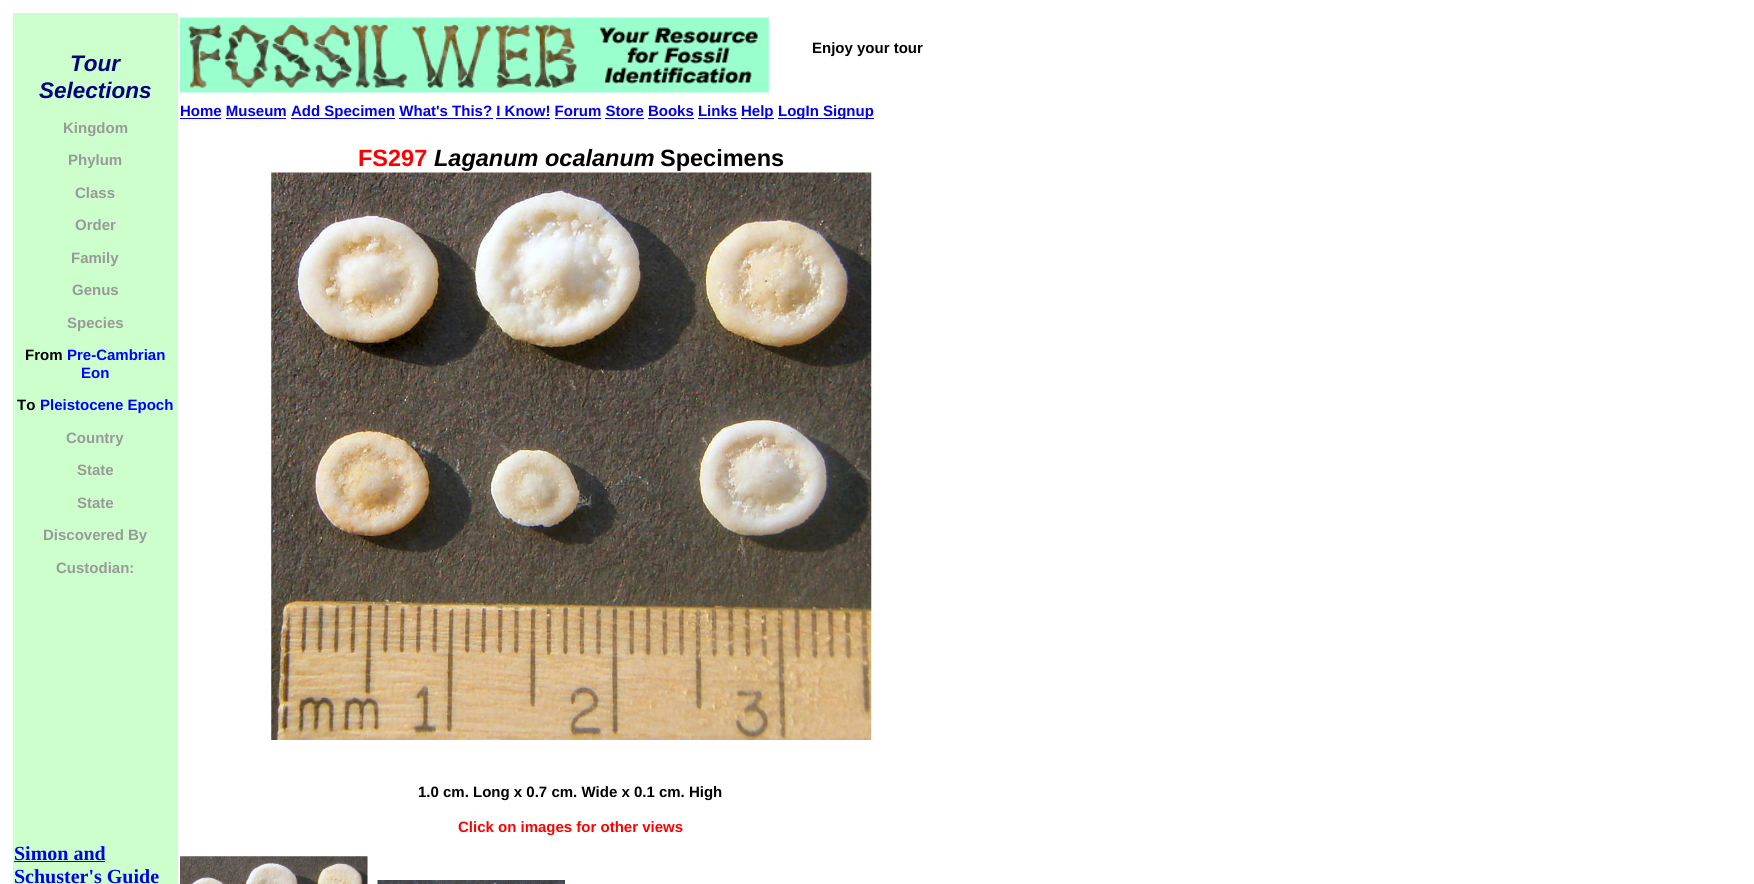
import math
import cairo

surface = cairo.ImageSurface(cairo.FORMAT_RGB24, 1754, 884)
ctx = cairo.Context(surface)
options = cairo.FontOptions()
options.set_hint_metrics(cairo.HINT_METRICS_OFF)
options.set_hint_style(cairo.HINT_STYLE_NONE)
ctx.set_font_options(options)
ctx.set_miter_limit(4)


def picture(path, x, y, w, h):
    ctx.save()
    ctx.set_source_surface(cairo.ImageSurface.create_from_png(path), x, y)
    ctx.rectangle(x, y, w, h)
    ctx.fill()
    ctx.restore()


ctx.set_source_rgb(1, 1, 1)
ctx.paint()
ctx.set_source_rgb(0.8, 1, 0.8)
ctx.rectangle(13, 13, 165, 871)
ctx.fill()
ctx.select_font_face("Liberation Sans", cairo.FONT_SLANT_ITALIC, cairo.FONT_WEIGHT_BOLD)
ctx.set_font_size(22.5)
ctx.set_source_rgb(0, 0, 0.502)
ctx.move_to(70, 71)
ctx.show_text("Tour")
ctx.move_to(39, 98)
ctx.show_text("Selections")
ctx.select_font_face("Liberation Sans", cairo.FONT_SLANT_NORMAL, cairo.FONT_WEIGHT_BOLD)
ctx.set_font_size(15)
ctx.set_source_rgb(0.6, 0.6, 0.6)
ctx.move_to(63, 133)
ctx.show_text("Kingdom")
ctx.move_to(68, 165)
ctx.show_text("Phylum")
ctx.move_to(75, 198)
ctx.show_text("Class")
ctx.move_to(75, 230)
ctx.show_text("Order")
ctx.move_to(71, 263)
ctx.show_text("Family")
ctx.move_to(72, 295)
ctx.show_text("Genus")
ctx.move_to(67, 328)
ctx.show_text("Species")
ctx.set_source_rgb(0, 0, 0)
ctx.move_to(25, 360)
ctx.show_text("From")
ctx.set_source_rgb(0, 0, 1)
ctx.move_to(67, 360)
ctx.show_text("Pre-Cambrian")
ctx.move_to(81, 378)
ctx.show_text("Eon")
ctx.set_source_rgb(0, 0, 0)
ctx.move_to(17, 410)
ctx.show_text("To")
ctx.set_source_rgb(0, 0, 1)
ctx.move_to(40, 410)
ctx.show_text("Pleistocene Epoch")
ctx.set_source_rgb(0.6, 0.6, 0.6)
ctx.move_to(66, 443)
ctx.show_text("Country")
ctx.move_to(77, 475)
ctx.show_text("State")
ctx.move_to(77, 508)
ctx.show_text("State")
ctx.move_to(43, 540)
ctx.show_text("Discovered By")
ctx.move_to(56, 573)
ctx.show_text("Custodian:")
ctx.select_font_face("Liberation Serif", cairo.FONT_SLANT_NORMAL, cairo.FONT_WEIGHT_BOLD)
ctx.set_font_size(20)
ctx.set_source_rgb(0, 0, 0.933)
ctx.move_to(14, 860)
ctx.show_text("Simon and")
ctx.rectangle(14, 861, 91, 1)
ctx.fill()
ctx.move_to(14, 883)
ctx.show_text("Schuster's Guide")
picture("img1.png", 180, 17, 589, 76)
ctx.select_font_face("Liberation Sans", cairo.FONT_SLANT_NORMAL, cairo.FONT_WEIGHT_BOLD)
ctx.set_font_size(15)
ctx.set_source_rgb(0, 0, 0)
ctx.move_to(812, 53)
ctx.show_text("Enjoy your tour")
ctx.set_source_rgb(0, 0, 0.933)
ctx.move_to(180, 116)
ctx.show_text("Home Museum")
ctx.rectangle(180, 118, 41, 1)
ctx.fill()
ctx.rectangle(291, 118, 104, 1)
ctx.fill()
ctx.move_to(291, 116)
ctx.show_text("Add Specimen What's This? I Know! Forum Store Books Links")
ctx.rectangle(741, 118, 33, 1)
ctx.fill()
ctx.move_to(741, 116)
ctx.show_text("Help")
ctx.rectangle(778, 118, 96, 1)
ctx.fill()
ctx.move_to(778, 116)
ctx.show_text("LogIn Signup")
ctx.rectangle(226, 118, 60, 1)
ctx.fill()
ctx.rectangle(399, 118, 94, 1)
ctx.fill()
ctx.rectangle(496, 118, 54, 1)
ctx.fill()
ctx.rectangle(555, 118, 46, 1)
ctx.fill()
ctx.rectangle(605, 118, 39, 1)
ctx.fill()
ctx.rectangle(648, 118, 46, 1)
ctx.fill()
ctx.rectangle(698, 118, 40, 1)
ctx.fill()
ctx.set_font_size(23.5)
ctx.set_source_rgb(1, 0, 0)
ctx.move_to(358, 166)
ctx.show_text("FS297")
ctx.select_font_face("Liberation Sans", cairo.FONT_SLANT_ITALIC, cairo.FONT_WEIGHT_BOLD)
ctx.set_source_rgb(0, 0, 0)
ctx.move_to(434, 166)
ctx.show_text("Laganum ocalanum")
ctx.select_font_face("Liberation Sans", cairo.FONT_SLANT_NORMAL, cairo.FONT_WEIGHT_BOLD)
ctx.move_to(660, 166)
ctx.show_text("Specimens")
picture("img2.png", 271, 172, 601, 568)
ctx.set_font_size(15)
ctx.move_to(418, 797)
ctx.show_text("1.0 cm. Long x 0.7 cm. Wide x 0.1 cm. High")
ctx.set_source_rgb(1, 0, 0)
ctx.move_to(458, 832)
ctx.show_text("Click on images for other views")
picture("img3.png", 180, 856, 188, 28)
picture("img4.png", 377, 880, 188, 4)
surface.write_to_png("page.png")
